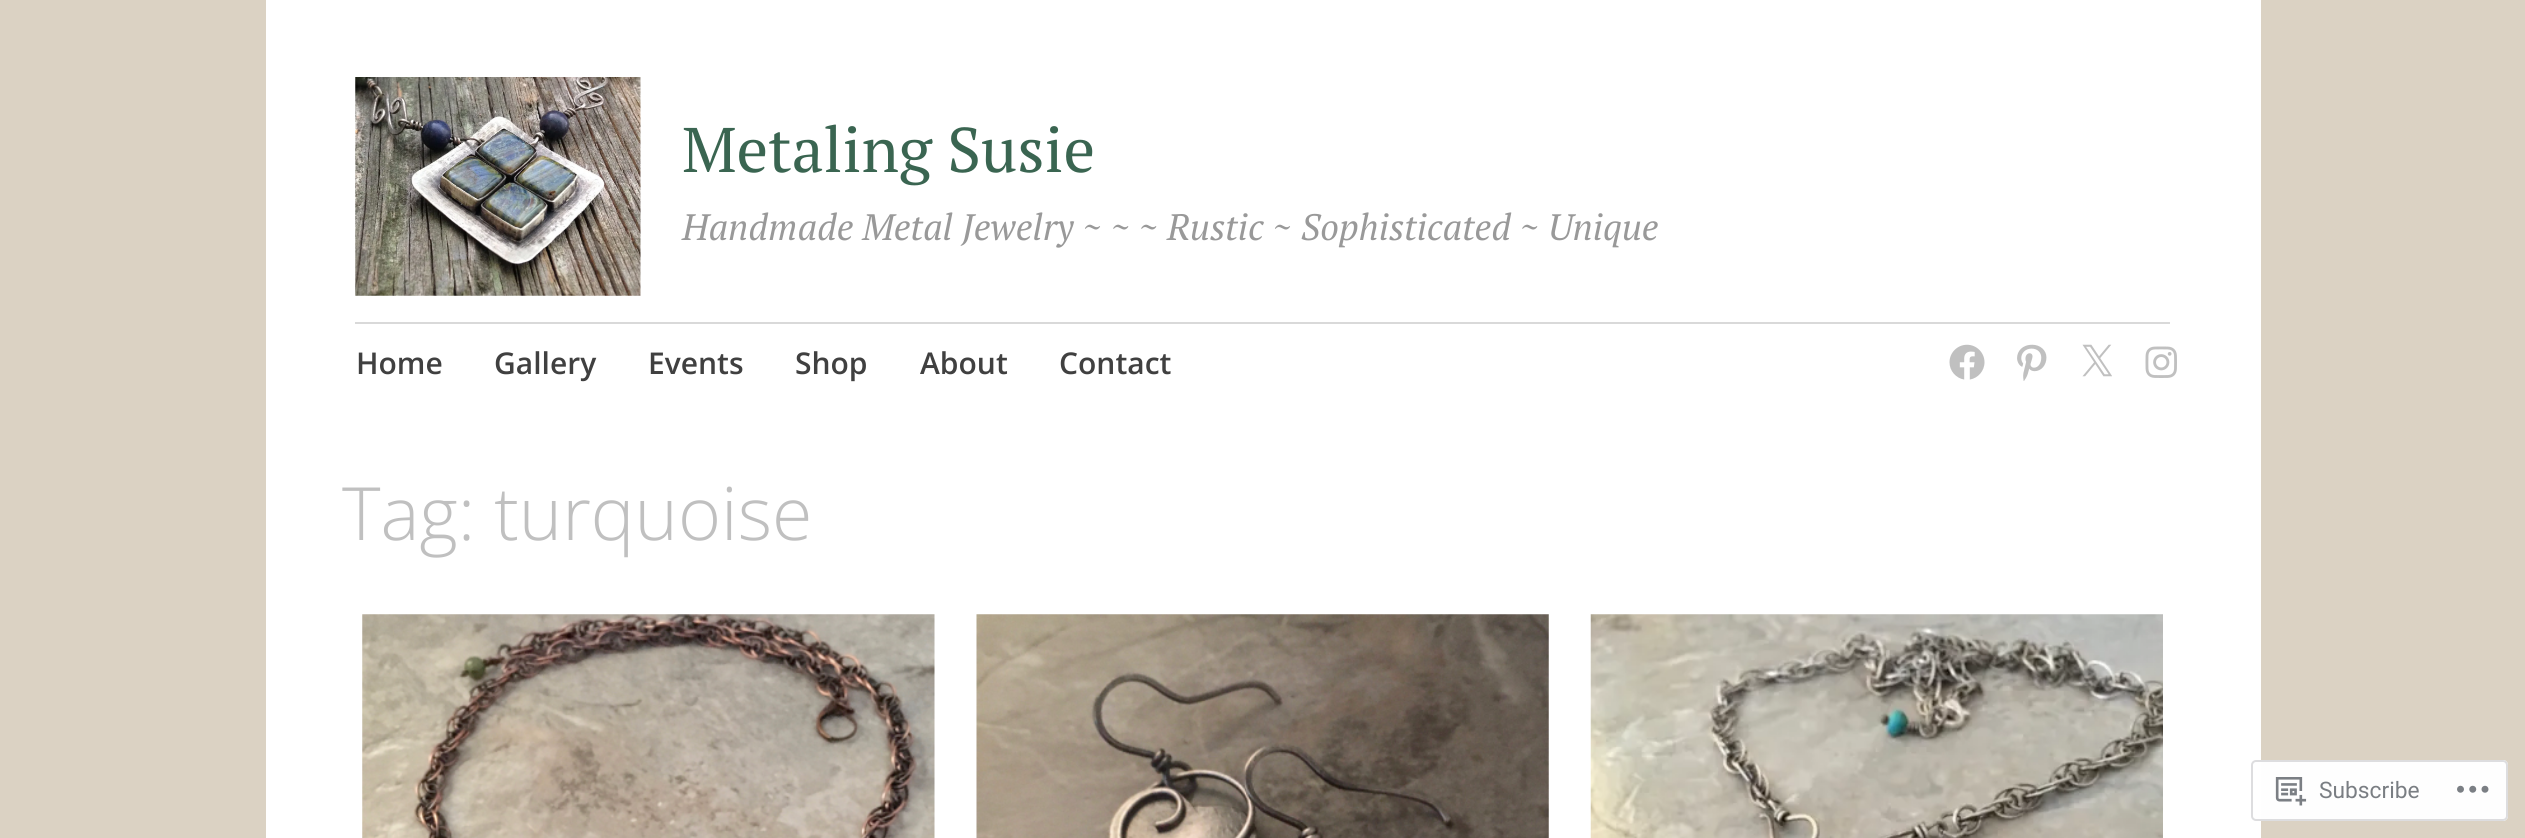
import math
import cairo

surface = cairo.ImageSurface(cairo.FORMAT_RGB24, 2525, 838)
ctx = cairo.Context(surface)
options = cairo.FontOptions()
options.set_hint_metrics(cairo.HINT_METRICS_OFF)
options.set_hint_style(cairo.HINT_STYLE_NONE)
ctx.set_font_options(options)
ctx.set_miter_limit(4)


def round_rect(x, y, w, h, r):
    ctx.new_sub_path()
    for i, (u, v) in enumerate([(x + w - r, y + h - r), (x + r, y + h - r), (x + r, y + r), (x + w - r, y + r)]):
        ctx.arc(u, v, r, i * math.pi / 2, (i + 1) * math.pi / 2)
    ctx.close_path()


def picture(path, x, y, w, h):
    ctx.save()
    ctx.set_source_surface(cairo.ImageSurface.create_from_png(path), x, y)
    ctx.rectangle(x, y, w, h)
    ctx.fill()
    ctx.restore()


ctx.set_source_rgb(0.859, 0.824, 0.765)
ctx.paint()
ctx.set_source_rgb(1, 1, 1)
ctx.rectangle(266, 0, 1995, 838)
ctx.fill()
picture("img1.png", 355, 77, 286, 219)
ctx.select_font_face("PT Serif")
ctx.set_font_size(63)
ctx.set_source_rgb(0.227, 0.396, 0.318)
ctx.move_to(682, 172)
ctx.show_text("Metaling Susie")
ctx.select_font_face("PT Serif", cairo.FONT_SLANT_ITALIC)
ctx.set_font_size(36.75)
ctx.set_source_rgb(0.6, 0.6, 0.6)
ctx.move_to(682, 240)
ctx.show_text("Handmade Metal Jewelry ~ ~ ~ Rustic ~ Sophisticated ~ Unique")
ctx.set_source_rgb(0.851, 0.851, 0.851)
ctx.rectangle(355, 322, 1815, 2)
ctx.fill()
ctx.select_font_face("Open Sans SemiBold")
ctx.set_font_size(30)
ctx.set_source_rgb(0.251, 0.251, 0.251)
ctx.move_to(356, 374)
ctx.show_text("Home")
ctx.move_to(494, 374)
ctx.show_text("Gallery")
ctx.move_to(648, 374)
ctx.show_text("Events")
ctx.move_to(795, 374)
ctx.show_text("Shop")
ctx.move_to(920, 374)
ctx.show_text("About")
ctx.move_to(1059, 374)
ctx.show_text("Contact")
picture("img2.png", 1949, 344, 36, 36)
picture("img3.png", 2017, 344, 30, 37)
picture("img4.png", 2082, 344, 30, 33)
picture("img5.png", 2145, 346, 32, 32)
ctx.select_font_face("Open Sans Light")
ctx.set_font_size(73.5)
ctx.set_source_rgb(0.753, 0.753, 0.753)
ctx.move_to(342, 540)
ctx.show_text("Tag: turquoise")
picture("img6.png", 362, 614, 573, 224)
picture("img7.png", 976, 614, 573, 224)
picture("img8.png", 1590, 614, 573, 224)
ctx.set_source_rgba(1, 1, 1, 0.98)
round_rect(2251, 760, 257, 61, 5)
ctx.fill()
round_rect(2252, 761, 255, 59, 4)
ctx.set_source_rgba(0.863, 0.863, 0.871, 0.98)
ctx.stroke()
picture("img9.png", 2275, 777, 32, 29)
ctx.select_font_face("Roboto")
ctx.set_font_size(22.75)
ctx.set_source_rgb(0.478, 0.494, 0.514)
ctx.move_to(2319, 798)
ctx.show_text("Subscribe")
picture("img10.png", 2457, 785, 32, 8)
surface.write_to_png("page.png")
